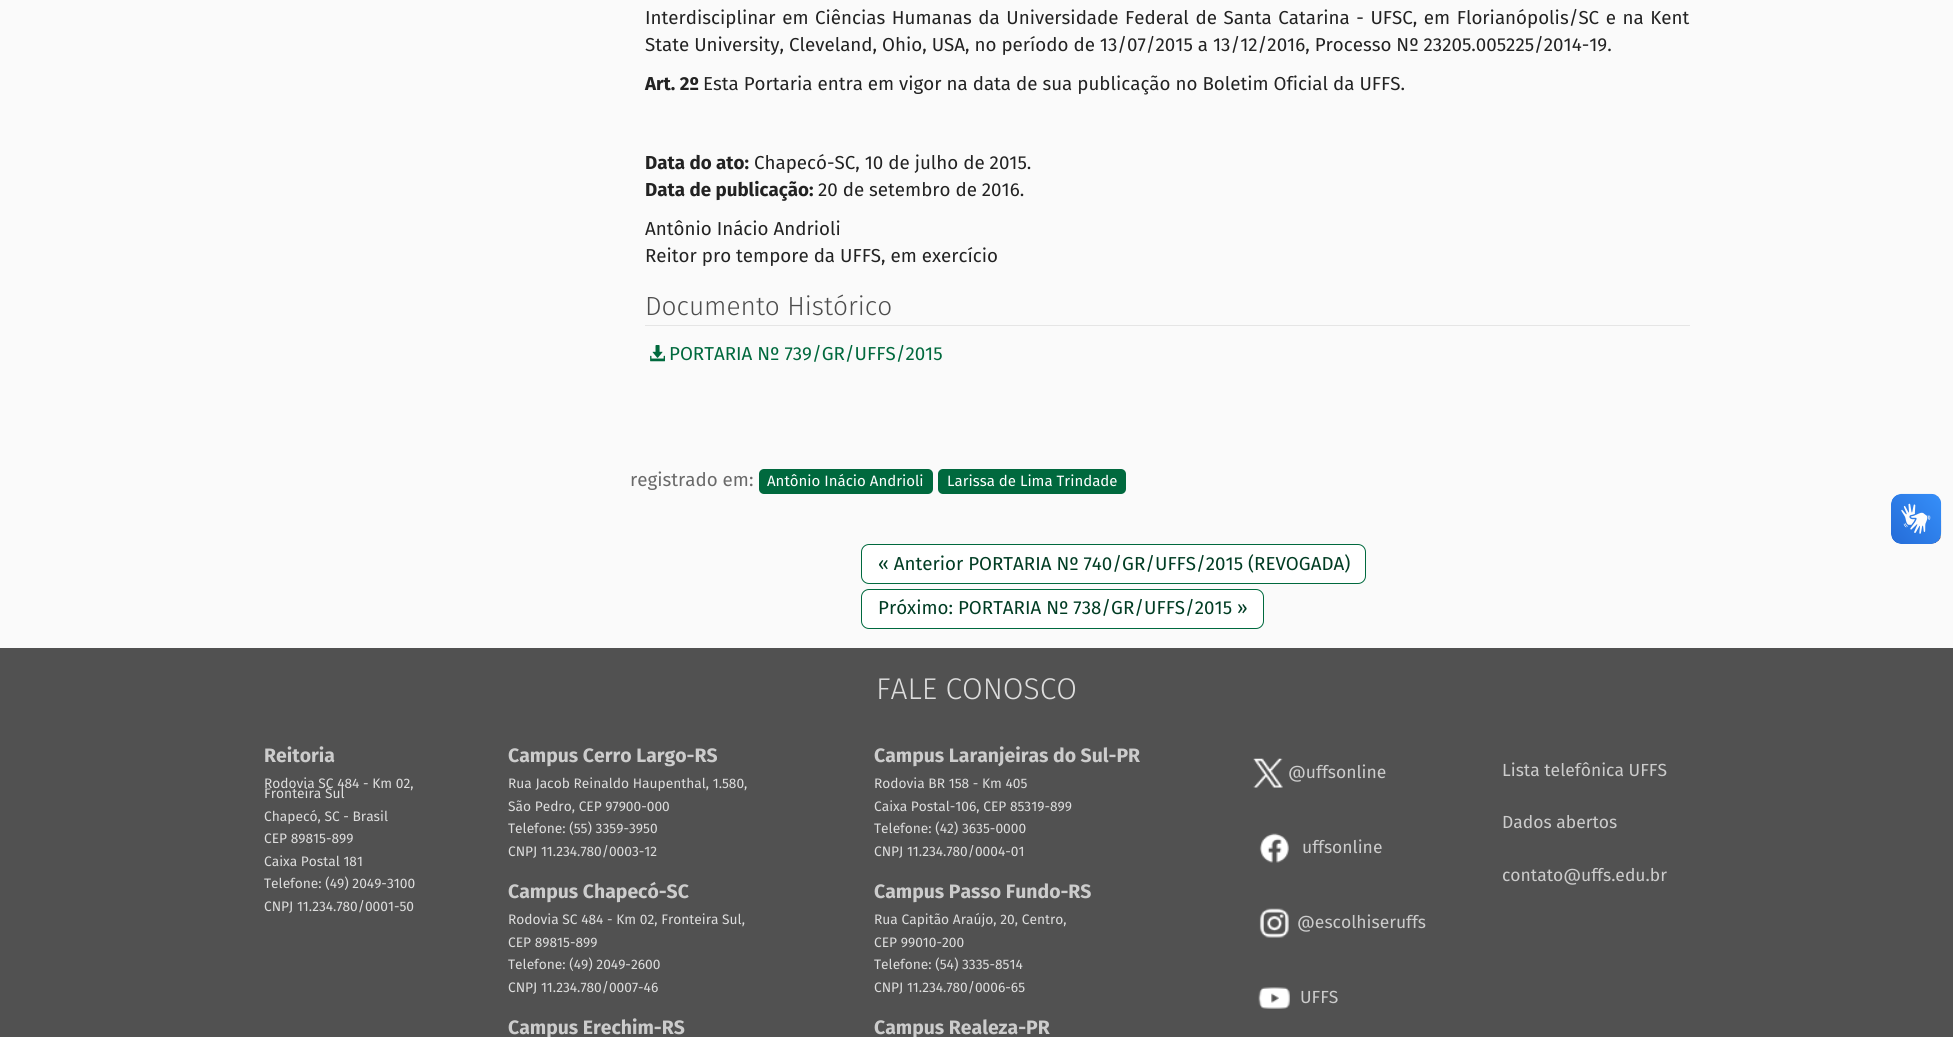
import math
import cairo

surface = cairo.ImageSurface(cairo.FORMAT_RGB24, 1953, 1037)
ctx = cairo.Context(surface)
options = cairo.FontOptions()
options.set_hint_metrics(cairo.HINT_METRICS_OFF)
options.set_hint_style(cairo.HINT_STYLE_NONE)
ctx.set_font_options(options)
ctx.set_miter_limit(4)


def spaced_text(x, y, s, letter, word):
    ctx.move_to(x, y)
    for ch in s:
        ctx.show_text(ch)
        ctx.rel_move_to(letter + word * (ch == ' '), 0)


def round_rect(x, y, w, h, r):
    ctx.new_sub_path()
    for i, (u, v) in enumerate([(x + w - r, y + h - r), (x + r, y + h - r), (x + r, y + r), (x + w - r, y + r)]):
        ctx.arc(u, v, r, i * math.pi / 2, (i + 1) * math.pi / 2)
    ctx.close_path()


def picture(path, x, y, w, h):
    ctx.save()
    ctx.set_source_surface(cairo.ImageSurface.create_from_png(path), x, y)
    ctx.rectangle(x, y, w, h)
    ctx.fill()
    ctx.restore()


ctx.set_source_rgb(0.98, 0.98, 0.98)
ctx.paint()
ctx.select_font_face("Fira Sans")
ctx.set_font_size(18.75)
ctx.set_source_rgb(0.133, 0.133, 0.133)
spaced_text(645, 24, "Interdisciplinar em Ciências Humanas da Universidade Federal de Santa Catarina - UFSC, em Florianópolis/SC e na Kent", 0, 1.6)
ctx.move_to(645, 51)
ctx.show_text("State University, Cleveland, Ohio, USA, no período de 13/07/2015 a 13/12/2016, Processo Nº 23205.005225/2014-19.")
ctx.select_font_face("Fira Sans", cairo.FONT_SLANT_NORMAL, cairo.FONT_WEIGHT_BOLD)
ctx.move_to(645, 90)
ctx.show_text("Art. 2º")
ctx.select_font_face("Fira Sans")
ctx.move_to(703, 90)
ctx.show_text("Esta Portaria entra em vigor na data de sua publicação no Boletim Oficial da UFFS.")
ctx.select_font_face("Fira Sans", cairo.FONT_SLANT_NORMAL, cairo.FONT_WEIGHT_BOLD)
ctx.move_to(645, 169)
ctx.show_text("Data do ato:")
ctx.select_font_face("Fira Sans")
ctx.move_to(754, 169)
ctx.show_text("Chapecó-SC, 10 de julho de 2015.")
ctx.select_font_face("Fira Sans", cairo.FONT_SLANT_NORMAL, cairo.FONT_WEIGHT_BOLD)
ctx.move_to(645, 196)
ctx.show_text("Data de publicação:")
ctx.select_font_face("Fira Sans")
ctx.move_to(818, 196)
ctx.show_text("20 de setembro de 2016.")
ctx.move_to(645, 235)
ctx.show_text("Antônio Inácio Andrioli")
ctx.move_to(645, 262)
ctx.show_text("Reitor pro tempore da UFFS, em exercício")
ctx.set_source_rgb(0.898, 0.898, 0.898)
ctx.rectangle(645, 325, 1045, 1)
ctx.fill()
ctx.select_font_face("Fira Sans Light")
ctx.set_font_size(26.25)
ctx.set_source_rgb(0.302, 0.302, 0.302)
ctx.move_to(645, 315)
ctx.show_text("Documento Histórico")
picture("img1.png", 650, 345, 15, 17)
ctx.select_font_face("Fira Sans")
ctx.set_font_size(18.75)
ctx.set_source_rgb(0, 0.412, 0.239)
ctx.move_to(669, 360)
ctx.show_text("PORTARIA Nº 739/GR/UFFS/2015")
ctx.set_source_rgb(0.412, 0.412, 0.412)
ctx.move_to(630, 486)
ctx.show_text("registrado em:")
ctx.set_source_rgb(0, 0.412, 0.243)
round_rect(759, 469, 174, 25, 5)
ctx.fill()
ctx.set_font_size(15)
ctx.set_source_rgb(1, 1, 1)
ctx.move_to(767, 486)
ctx.show_text("Antônio Inácio Andrioli")
ctx.set_source_rgb(0, 0.412, 0.243)
round_rect(938, 469, 188, 25, 5)
ctx.fill()
ctx.set_source_rgb(1, 1, 1)
ctx.move_to(947, 486)
ctx.show_text("Larissa de Lima Trindade")
round_rect(861.5, 544.5, 504, 39, 7.5)
ctx.fill_preserve()
ctx.set_source_rgb(0, 0.412, 0.243)
ctx.set_line_width(1)
ctx.stroke()
ctx.set_font_size(18.75)
ctx.set_source_rgb(0, 0.235, 0.137)
ctx.move_to(878, 570)
ctx.show_text("« Anterior PORTARIA Nº 740/GR/UFFS/2015 (REVOGADA)")
ctx.set_source_rgb(1, 1, 1)
round_rect(861.5, 589.5, 402, 39, 7.5)
ctx.fill_preserve()
ctx.set_source_rgb(0, 0.412, 0.243)
ctx.stroke()
ctx.set_source_rgb(0, 0.235, 0.137)
ctx.move_to(878, 614)
ctx.show_text("Próximo: PORTARIA Nº 738/GR/UFFS/2015 »")
picture("img2.png", 1891, 493, 51, 51)
picture("img3.png", 1891, 494, 50, 50)
ctx.set_source_rgb(0.318, 0.318, 0.318)
ctx.rectangle(0, 648, 1953, 389)
ctx.fill()
ctx.select_font_face("Fira Sans Light")
ctx.set_font_size(30)
ctx.set_source_rgb(0.867, 0.867, 0.867)
ctx.move_to(876, 699)
ctx.show_text("FALE CONOSCO")
ctx.select_font_face("Fira Sans", cairo.FONT_SLANT_NORMAL, cairo.FONT_WEIGHT_BOLD)
ctx.set_font_size(19.4)
ctx.set_source_rgb(0.8, 0.8, 0.8)
ctx.move_to(264, 762)
ctx.show_text("Reitoria")
ctx.select_font_face("Fira Sans")
ctx.set_font_size(13.75)
ctx.set_source_rgb(0.867, 0.867, 0.867)
ctx.move_to(264, 788)
ctx.show_text("Rodovia SC 484 - Km 02,")
ctx.move_to(264, 798)
ctx.show_text("Fronteira Sul")
ctx.move_to(264, 821)
ctx.show_text("Chapecó, SC - Brasil")
ctx.move_to(264, 843)
ctx.show_text("CEP 89815-899")
ctx.move_to(264, 866)
ctx.show_text("Caixa Postal 181")
ctx.move_to(264, 888)
ctx.show_text("Telefone: (49) 2049-3100")
ctx.move_to(264, 911)
ctx.show_text("CNPJ 11.234.780/0001-50")
ctx.select_font_face("Fira Sans", cairo.FONT_SLANT_NORMAL, cairo.FONT_WEIGHT_BOLD)
ctx.set_font_size(19.4)
ctx.set_source_rgb(0.8, 0.8, 0.8)
ctx.move_to(508, 762)
ctx.show_text("Campus Cerro Largo-RS")
ctx.select_font_face("Fira Sans")
ctx.set_font_size(13.75)
ctx.set_source_rgb(0.867, 0.867, 0.867)
ctx.move_to(508, 788)
ctx.show_text("Rua Jacob Reinaldo Haupenthal, 1.580,")
ctx.move_to(508, 811)
ctx.show_text("São Pedro, CEP 97900-000")
ctx.move_to(508, 833)
ctx.show_text("Telefone: (55) 3359-3950")
ctx.move_to(508, 856)
ctx.show_text("CNPJ 11.234.780/0003-12")
ctx.select_font_face("Fira Sans", cairo.FONT_SLANT_NORMAL, cairo.FONT_WEIGHT_BOLD)
ctx.set_font_size(19.4)
ctx.set_source_rgb(0.8, 0.8, 0.8)
ctx.move_to(508, 898)
ctx.show_text("Campus Chapecó-SC")
ctx.select_font_face("Fira Sans")
ctx.set_font_size(13.75)
ctx.set_source_rgb(0.867, 0.867, 0.867)
ctx.move_to(508, 924)
ctx.show_text("Rodovia SC 484 - Km 02, Fronteira Sul,")
ctx.move_to(508, 947)
ctx.show_text("CEP 89815-899")
ctx.move_to(508, 969)
ctx.show_text("Telefone: (49) 2049-2600")
ctx.move_to(508, 992)
ctx.show_text("CNPJ 11.234.780/0007-46")
ctx.select_font_face("Fira Sans", cairo.FONT_SLANT_NORMAL, cairo.FONT_WEIGHT_BOLD)
ctx.set_font_size(19.4)
ctx.set_source_rgb(0.8, 0.8, 0.8)
ctx.move_to(508, 1034)
ctx.show_text("Campus Erechim-RS")
ctx.move_to(874, 762)
ctx.show_text("Campus Laranjeiras do Sul-PR")
ctx.select_font_face("Fira Sans")
ctx.set_font_size(13.75)
ctx.set_source_rgb(0.867, 0.867, 0.867)
ctx.move_to(874, 788)
ctx.show_text("Rodovia BR 158 - Km 405")
ctx.move_to(874, 811)
ctx.show_text("Caixa Postal-106, CEP 85319-899")
ctx.move_to(874, 833)
ctx.show_text("Telefone: (42) 3635-0000")
ctx.move_to(874, 856)
ctx.show_text("CNPJ 11.234.780/0004-01")
ctx.select_font_face("Fira Sans", cairo.FONT_SLANT_NORMAL, cairo.FONT_WEIGHT_BOLD)
ctx.set_font_size(19.4)
ctx.set_source_rgb(0.8, 0.8, 0.8)
ctx.move_to(874, 898)
ctx.show_text("Campus Passo Fundo-RS")
ctx.select_font_face("Fira Sans")
ctx.set_font_size(13.75)
ctx.set_source_rgb(0.867, 0.867, 0.867)
ctx.move_to(874, 924)
ctx.show_text("Rua Capitão Araújo, 20, Centro,")
ctx.move_to(874, 947)
ctx.show_text("CEP 99010-200")
ctx.move_to(874, 969)
ctx.show_text("Telefone: (54) 3335-8514")
ctx.move_to(874, 992)
ctx.show_text("CNPJ 11.234.780/0006-65")
ctx.select_font_face("Fira Sans", cairo.FONT_SLANT_NORMAL, cairo.FONT_WEIGHT_BOLD)
ctx.set_font_size(19.4)
ctx.set_source_rgb(0.8, 0.8, 0.8)
ctx.move_to(874, 1034)
ctx.show_text("Campus Realeza-PR")
picture("img4.png", 1253, 758, 30, 30)
ctx.select_font_face("Fira Sans")
ctx.set_font_size(17.5)
ctx.move_to(1288, 778)
ctx.show_text("@uffsonline")
picture("img5.png", 1259, 833, 30, 30)
ctx.move_to(1302, 853)
ctx.show_text("uffsonline")
picture("img6.png", 1259, 908, 30, 30)
ctx.move_to(1297, 928)
ctx.show_text("@escolhiseruffs")
picture("img7.png", 1258, 987, 32, 22)
ctx.move_to(1300, 1003)
ctx.show_text("UFFS")
ctx.move_to(1502, 776)
ctx.show_text("Lista telefônica UFFS")
ctx.move_to(1502, 828)
ctx.show_text("Dados abertos")
ctx.move_to(1502, 881)
ctx.show_text("contato@uffs.edu.br")
surface.write_to_png("page.png")
